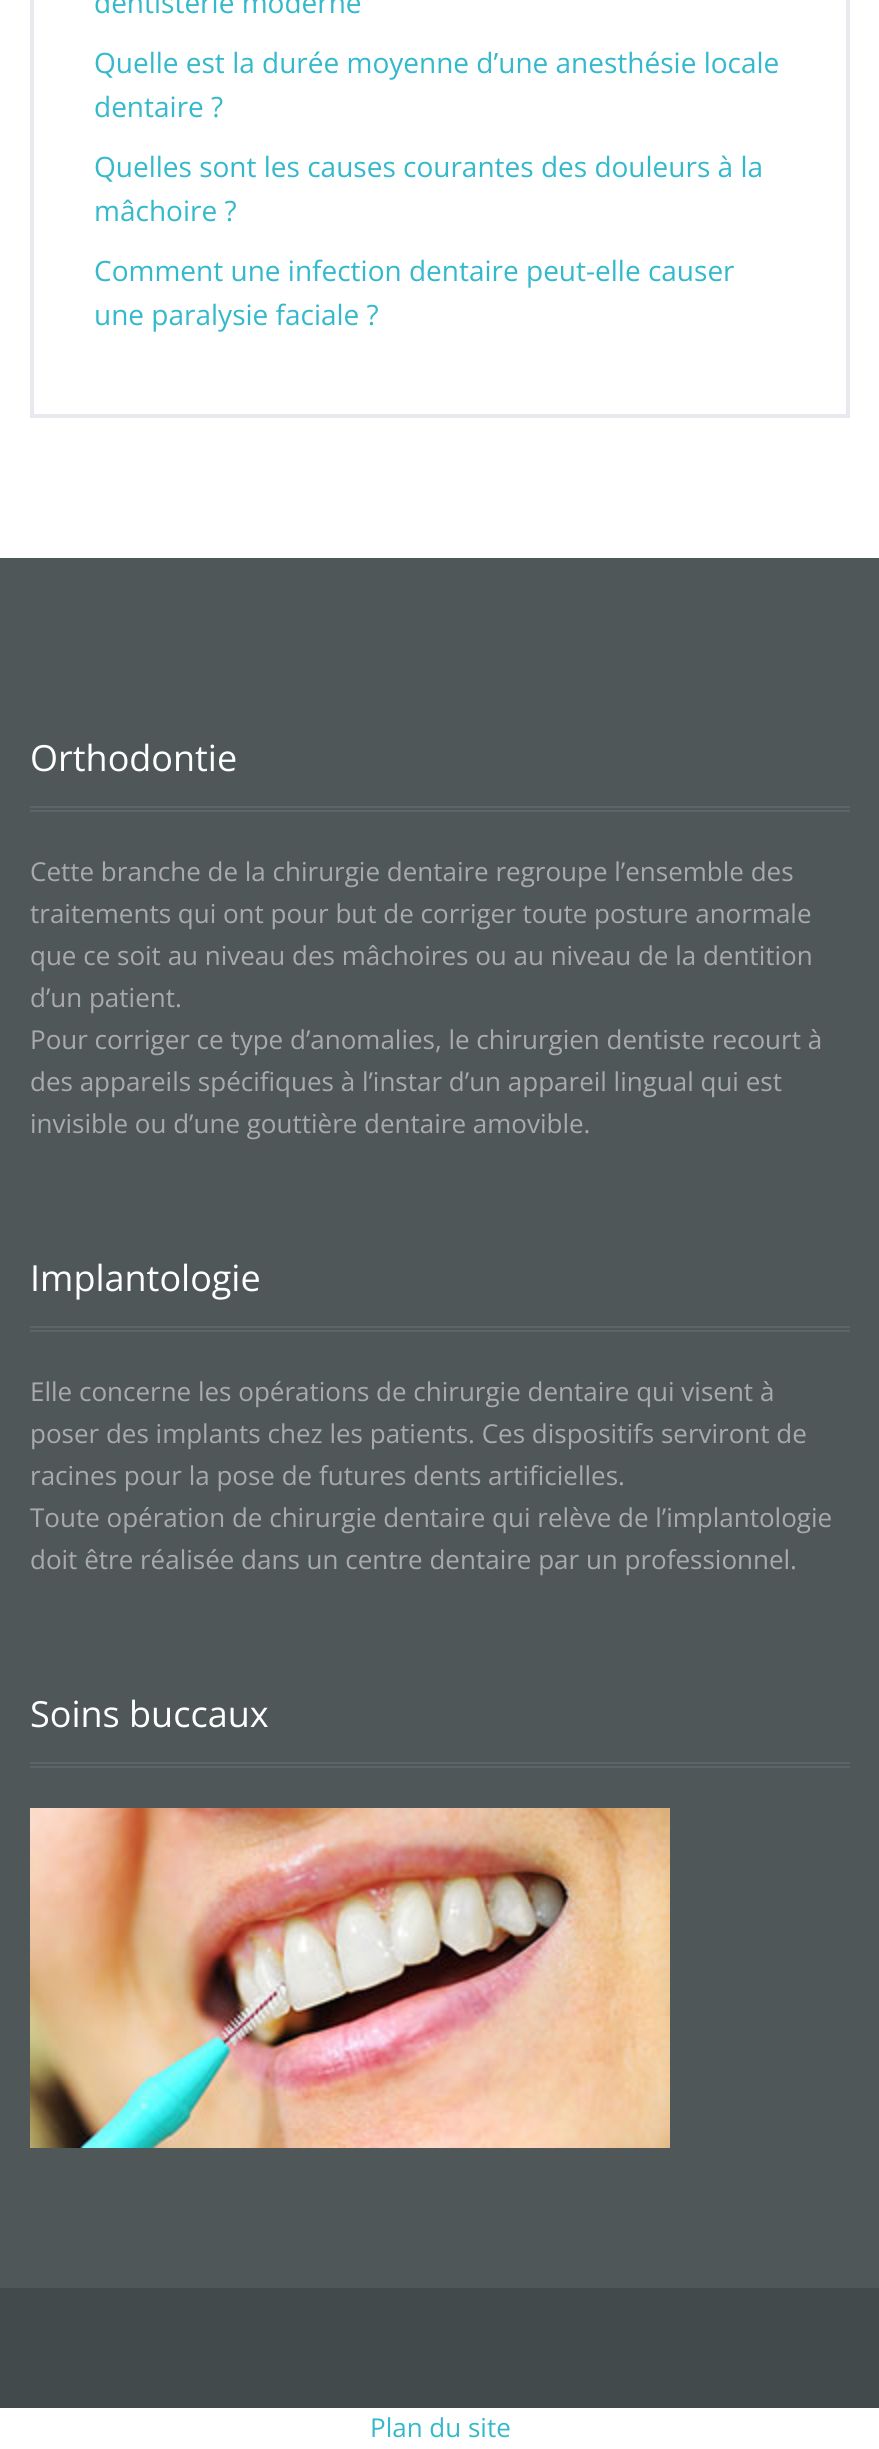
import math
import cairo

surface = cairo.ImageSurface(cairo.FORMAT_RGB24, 879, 2449)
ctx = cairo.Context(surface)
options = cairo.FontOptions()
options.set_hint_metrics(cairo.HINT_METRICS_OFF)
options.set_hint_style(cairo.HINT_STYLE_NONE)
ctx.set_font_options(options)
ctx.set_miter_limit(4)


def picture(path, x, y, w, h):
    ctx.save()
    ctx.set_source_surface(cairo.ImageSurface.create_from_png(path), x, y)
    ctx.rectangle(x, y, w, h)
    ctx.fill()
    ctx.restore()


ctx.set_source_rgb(1, 1, 1)
ctx.paint()
ctx.rectangle(32, -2, 816, 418)
ctx.set_source_rgb(0.906, 0.914, 0.937)
ctx.set_line_width(4)
ctx.stroke()
ctx.select_font_face("Open Sans")
ctx.set_font_size(28)
ctx.set_source_rgb(0.2, 0.725, 0.796)
ctx.move_to(94, 13)
ctx.show_text("dentisterie moderne")
ctx.move_to(94, 73)
ctx.show_text("Quelle est la durée moyenne d’une anesthésie locale")
ctx.move_to(94, 117)
ctx.show_text("dentaire ?")
ctx.move_to(94, 177)
ctx.show_text("Quelles sont les causes courantes des douleurs à la")
ctx.move_to(94, 221)
ctx.show_text("mâchoire ?")
ctx.move_to(94, 281)
ctx.show_text("Comment une infection dentaire peut-elle causer")
ctx.move_to(94, 325)
ctx.show_text("une paralysie faciale ?")
ctx.set_source_rgb(0.31, 0.341, 0.349)
ctx.rectangle(0, 558, 879, 1730)
ctx.fill()
ctx.set_source_rgb(0.357, 0.392, 0.404)
ctx.rectangle(30, 806, 820, 2)
ctx.fill()
ctx.rectangle(30, 810, 820, 2)
ctx.fill()
ctx.set_font_size(36)
ctx.set_source_rgb(1, 1, 1)
ctx.move_to(30, 771)
ctx.show_text("Orthodontie")
ctx.set_font_size(26)
ctx.set_source_rgb(0.667, 0.667, 0.667)
ctx.move_to(30, 881)
ctx.show_text("Cette branche de la chirurgie dentaire regroupe l’ensemble des")
ctx.move_to(30, 923)
ctx.show_text("traitements qui ont pour but de corriger toute posture anormale")
ctx.move_to(30, 965)
ctx.show_text("que ce soit au niveau des mâchoires ou au niveau de la dentition")
ctx.move_to(30, 1007)
ctx.show_text("d’un patient.")
ctx.move_to(30, 1049)
ctx.show_text("Pour corriger ce type d’anomalies, le chirurgien dentiste recourt à")
ctx.move_to(30, 1091)
ctx.show_text("des appareils spécifiques à l’instar d’un appareil lingual qui est")
ctx.move_to(30, 1133)
ctx.show_text("invisible ou d’une gouttière dentaire amovible.")
ctx.set_source_rgb(0.357, 0.392, 0.404)
ctx.rectangle(30, 1326, 820, 2)
ctx.fill()
ctx.rectangle(30, 1330, 820, 2)
ctx.fill()
ctx.set_font_size(36)
ctx.set_source_rgb(1, 1, 1)
ctx.move_to(30, 1291)
ctx.show_text("Implantologie")
ctx.set_font_size(26)
ctx.set_source_rgb(0.667, 0.667, 0.667)
ctx.move_to(30, 1401)
ctx.show_text("Elle concerne les opérations de chirurgie dentaire qui visent à")
ctx.move_to(30, 1443)
ctx.show_text("poser des implants chez les patients. Ces dispositifs serviront de")
ctx.move_to(30, 1485)
ctx.show_text("racines pour la pose de futures dents artificielles.")
ctx.move_to(30, 1527)
ctx.show_text("Toute opération de chirurgie dentaire qui relève de l’implantologie")
ctx.move_to(30, 1569)
ctx.show_text("doit être réalisée dans un centre dentaire par un professionnel.")
ctx.set_source_rgb(0.357, 0.392, 0.404)
ctx.rectangle(30, 1762, 820, 2)
ctx.fill()
ctx.rectangle(30, 1766, 820, 2)
ctx.fill()
ctx.set_font_size(36)
ctx.set_source_rgb(1, 1, 1)
ctx.move_to(30, 1727)
ctx.show_text("Soins buccaux")
picture("img1.png", 30, 1808, 640, 340)
ctx.set_source_rgb(0.263, 0.29, 0.298)
ctx.rectangle(0, 2288, 879, 120)
ctx.fill()
ctx.set_font_size(26)
ctx.set_source_rgb(0.2, 0.725, 0.796)
ctx.move_to(370, 2437)
ctx.show_text("Plan du site")
surface.write_to_png("page.png")
